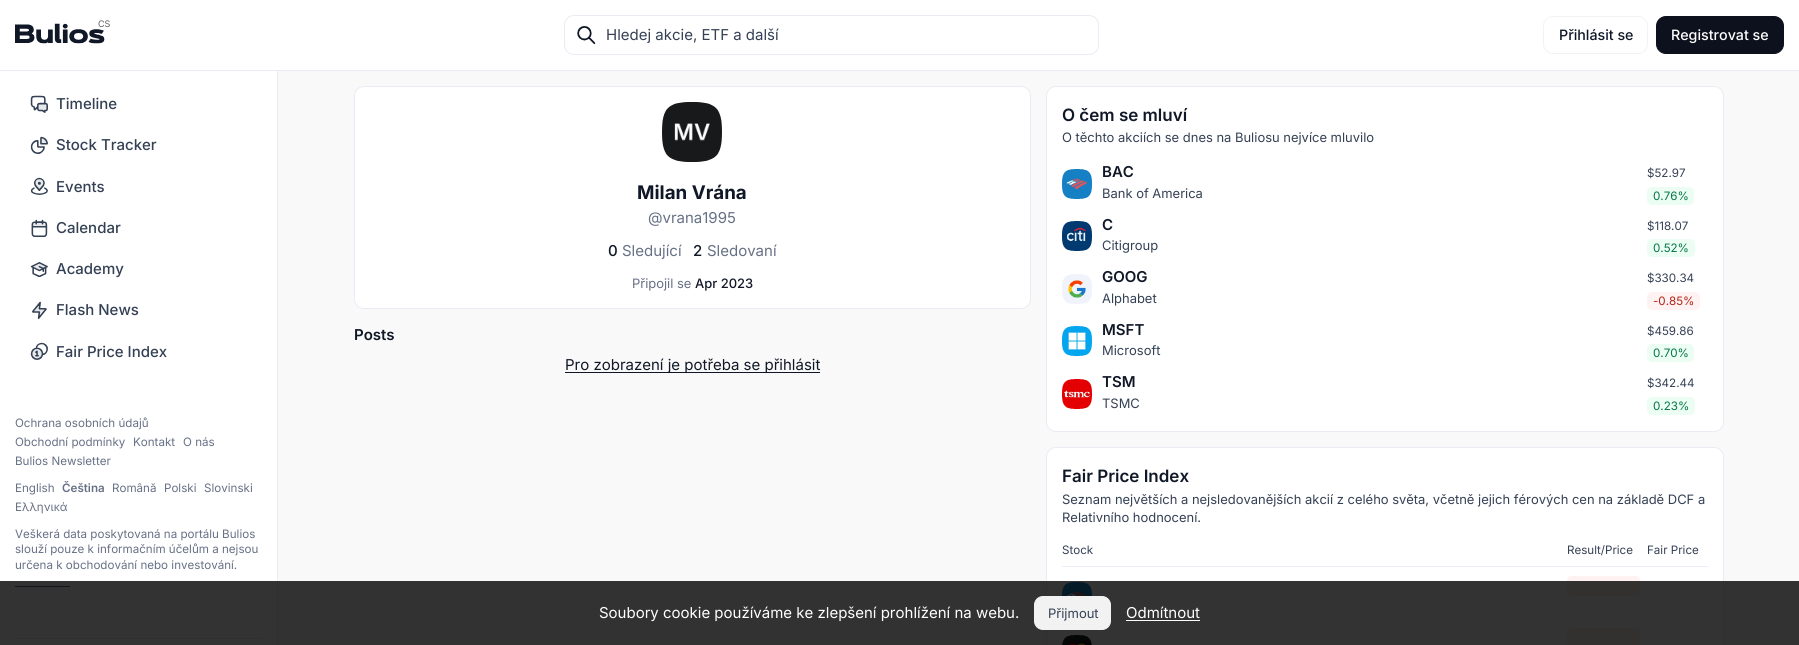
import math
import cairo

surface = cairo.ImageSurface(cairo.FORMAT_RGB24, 1799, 645)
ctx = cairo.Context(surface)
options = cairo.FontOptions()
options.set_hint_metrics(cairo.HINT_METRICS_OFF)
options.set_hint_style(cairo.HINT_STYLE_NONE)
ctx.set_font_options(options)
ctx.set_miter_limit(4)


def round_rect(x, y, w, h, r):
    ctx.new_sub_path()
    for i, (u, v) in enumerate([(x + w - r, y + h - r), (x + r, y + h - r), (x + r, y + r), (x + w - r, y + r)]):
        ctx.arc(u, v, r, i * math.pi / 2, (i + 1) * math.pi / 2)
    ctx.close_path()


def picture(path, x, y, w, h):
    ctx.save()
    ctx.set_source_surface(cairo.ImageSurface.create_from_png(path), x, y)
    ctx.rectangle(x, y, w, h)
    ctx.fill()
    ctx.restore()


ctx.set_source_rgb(0.976, 0.976, 0.976)
ctx.paint()
ctx.set_source_rgb(1, 1, 1)
ctx.rectangle(0, 0, 1799, 70)
ctx.fill()
ctx.set_source_rgb(0.914, 0.925, 0.957)
ctx.rectangle(0, 70, 1799, 1)
ctx.fill()
picture("img1.png", 15, 23, 90, 21)
ctx.select_font_face("Inter")
ctx.set_font_size(9)
ctx.set_source_rgb(0.376, 0.376, 0.376)
ctx.move_to(98, 27)
ctx.show_text("CS")
round_rect(564.5, 15.5, 534, 39, 9.5)
ctx.set_source_rgb(0.914, 0.925, 0.957)
ctx.set_line_width(1)
ctx.stroke()
picture("img2.png", 577, 26, 19, 18)
ctx.set_font_size(15)
ctx.set_source_rgb(0.204, 0.251, 0.329)
ctx.move_to(606, 40)
ctx.show_text("Hledej akcie, ETF a další")
round_rect(1543.5, 16.5, 104, 37, 9.5)
ctx.set_source_rgb(0.949, 0.949, 0.949)
ctx.stroke()
ctx.select_font_face("Inter Medium")
ctx.set_font_size(14.25)
ctx.set_source_rgb(0.063, 0.094, 0.157)
ctx.move_to(1559, 40)
ctx.show_text("Přihlásit se")
ctx.set_source_rgb(0.047, 0.067, 0.114)
round_rect(1656.5, 16.5, 127, 37, 9.5)
ctx.fill_preserve()
ctx.stroke()
ctx.set_source_rgb(1, 1, 1)
ctx.move_to(1671, 40)
ctx.show_text("Registrovat se")
ctx.rectangle(0, 71, 277, 574)
ctx.fill()
ctx.set_source_rgb(0.914, 0.925, 0.957)
ctx.rectangle(277, 71, 1, 574)
ctx.fill()
picture("img3.png", 30, 95, 18, 18)
ctx.set_font_size(15)
ctx.set_source_rgb(0.204, 0.251, 0.329)
ctx.move_to(56, 109)
ctx.show_text("Timeline")
picture("img4.png", 30, 136, 18, 18)
ctx.move_to(56, 150)
ctx.show_text("Stock Tracker")
picture("img5.png", 30, 177, 18, 18)
ctx.move_to(56, 192)
ctx.show_text("Events")
picture("img6.png", 31, 219, 17, 18)
ctx.move_to(56, 233)
ctx.show_text("Calendar")
picture("img7.png", 30, 262, 18, 15)
ctx.move_to(56, 274)
ctx.show_text("Academy")
picture("img8.png", 32, 301, 15, 18)
ctx.move_to(56, 315)
ctx.show_text("Flash News")
picture("img9.png", 30, 342, 18, 18)
ctx.move_to(56, 357)
ctx.show_text("Fair Price Index")
ctx.select_font_face("Inter")
ctx.set_font_size(11.6)
ctx.set_source_rgb(0.4, 0.439, 0.522)
ctx.move_to(15, 427)
ctx.show_text("Ochrana osobních údajů")
ctx.move_to(15, 446)
ctx.show_text("Obchodní podmínky")
ctx.move_to(133, 446)
ctx.show_text("Kontakt")
ctx.move_to(183, 446)
ctx.show_text("O nás")
ctx.move_to(15, 465)
ctx.show_text("Bulios Newsletter")
ctx.move_to(15, 492)
ctx.show_text("English")
ctx.select_font_face("Inter SemiBold")
ctx.move_to(62, 492)
ctx.show_text("Čeština")
ctx.select_font_face("Inter")
ctx.move_to(112, 492)
ctx.show_text("Română")
ctx.move_to(164, 492)
ctx.show_text("Polski")
ctx.move_to(204, 492)
ctx.show_text("Slovinski")
ctx.move_to(15, 511)
ctx.show_text("Ελληνικά")
ctx.move_to(15, 538)
ctx.show_text("Veškerá data poskytovaná na portálu Bulios")
ctx.move_to(15, 553)
ctx.show_text("slouží pouze k informačním účelům a nejsou")
ctx.move_to(15, 569)
ctx.show_text("určena k obchodování nebo investování.")
ctx.rectangle(15, 586, 55, 1)
ctx.fill()
ctx.set_source_rgb(0.914, 0.925, 0.957)
ctx.rectangle(15, 638, 247, 1)
ctx.fill()
ctx.set_source_rgb(1, 1, 1)
round_rect(354.5, 86.5, 676, 222, 9.5)
ctx.fill_preserve()
ctx.set_source_rgb(0.914, 0.925, 0.957)
ctx.stroke()
picture("img10.png", 662, 102, 60, 60)
ctx.select_font_face("Inter", cairo.FONT_SLANT_NORMAL, cairo.FONT_WEIGHT_BOLD)
ctx.set_font_size(18.75)
ctx.set_source_rgb(0.063, 0.094, 0.157)
ctx.move_to(637, 199)
ctx.show_text("Milan Vrána")
ctx.select_font_face("Inter")
ctx.set_font_size(15)
ctx.set_source_rgb(0.4, 0.439, 0.522)
ctx.move_to(648, 223)
ctx.show_text("@vrana1995")
ctx.select_font_face("Inter Medium")
ctx.set_source_rgb(0.063, 0.094, 0.157)
ctx.move_to(608, 256)
ctx.show_text("0")
ctx.select_font_face("Inter")
ctx.set_source_rgb(0.4, 0.439, 0.522)
ctx.move_to(622, 256)
ctx.show_text("Sledující")
ctx.select_font_face("Inter Medium")
ctx.set_source_rgb(0.063, 0.094, 0.157)
ctx.move_to(693, 256)
ctx.show_text("2")
ctx.select_font_face("Inter")
ctx.set_source_rgb(0.4, 0.439, 0.522)
ctx.move_to(707, 256)
ctx.show_text("Sledovaní")
ctx.set_font_size(12.95)
ctx.move_to(632, 288)
ctx.show_text("Připojil se")
ctx.select_font_face("Inter Medium")
ctx.set_source_rgb(0.063, 0.094, 0.157)
ctx.move_to(695, 288)
ctx.show_text("Apr 2023")
ctx.select_font_face("Inter SemiBold")
ctx.set_font_size(15)
ctx.move_to(354, 340)
ctx.show_text("Posts")
ctx.rectangle(565, 372, 255, 1)
ctx.fill()
ctx.select_font_face("Inter")
ctx.move_to(565, 370)
ctx.show_text("Pro zobrazení je potřeba se přihlásit")
ctx.set_source_rgb(1, 1, 1)
round_rect(1046.5, 86.5, 677, 345, 9.5)
ctx.fill_preserve()
ctx.set_source_rgb(0.914, 0.925, 0.957)
ctx.stroke()
ctx.select_font_face("Inter SemiBold")
ctx.set_font_size(17)
ctx.set_source_rgb(0.063, 0.094, 0.157)
ctx.move_to(1062, 121)
ctx.show_text("O čem se mluví")
ctx.select_font_face("Inter")
ctx.set_font_size(12.95)
ctx.set_source_rgb(0.204, 0.251, 0.329)
ctx.move_to(1062, 142)
ctx.show_text("O těchto akciích se dnes na Buliosu nejvíce mluvilo")
picture("img11.png", 1062, 169, 30, 30)
ctx.select_font_face("Inter SemiBold")
ctx.set_font_size(15)
ctx.set_source_rgb(0.063, 0.094, 0.157)
ctx.move_to(1102, 177)
ctx.show_text("BAC")
ctx.select_font_face("Inter")
ctx.set_font_size(12.95)
ctx.set_source_rgb(0.204, 0.251, 0.329)
ctx.move_to(1102, 198)
ctx.show_text("Bank of America")
ctx.set_font_size(11.6)
ctx.move_to(1647, 177)
ctx.show_text("$52.97")
ctx.set_source_rgb(0.925, 0.992, 0.953)
round_rect(1647, 187, 47, 18, 5)
ctx.fill()
ctx.set_source_rgb(0.024, 0.463, 0.278)
ctx.move_to(1653, 200)
ctx.show_text("0.76%")
picture("img12.png", 1062, 221, 30, 30)
ctx.select_font_face("Inter SemiBold")
ctx.set_font_size(15)
ctx.set_source_rgb(0.063, 0.094, 0.157)
ctx.move_to(1102, 230)
ctx.show_text("C")
ctx.select_font_face("Inter")
ctx.set_font_size(12.95)
ctx.set_source_rgb(0.204, 0.251, 0.329)
ctx.move_to(1102, 250)
ctx.show_text("Citigroup")
ctx.set_font_size(11.6)
ctx.move_to(1647, 230)
ctx.show_text("$118.07")
ctx.set_source_rgb(0.925, 0.992, 0.953)
round_rect(1647, 239, 48, 18, 5)
ctx.fill()
ctx.set_source_rgb(0.024, 0.463, 0.278)
ctx.move_to(1653, 252)
ctx.show_text("0.52%")
picture("img13.png", 1062, 274, 30, 30)
ctx.select_font_face("Inter SemiBold")
ctx.set_font_size(15)
ctx.set_source_rgb(0.063, 0.094, 0.157)
ctx.move_to(1102, 282)
ctx.show_text("GOOG")
ctx.select_font_face("Inter")
ctx.set_font_size(12.95)
ctx.set_source_rgb(0.204, 0.251, 0.329)
ctx.move_to(1102, 303)
ctx.show_text("Alphabet")
ctx.set_font_size(11.6)
ctx.move_to(1647, 282)
ctx.show_text("$330.34")
ctx.set_source_rgb(0.996, 0.953, 0.949)
round_rect(1647, 292, 53, 18, 5)
ctx.fill()
ctx.set_source_rgb(0.702, 0.137, 0.094)
ctx.move_to(1653, 305)
ctx.show_text("-0.85%")
picture("img14.png", 1062, 326, 30, 30)
ctx.select_font_face("Inter SemiBold")
ctx.set_font_size(15)
ctx.set_source_rgb(0.063, 0.094, 0.157)
ctx.move_to(1102, 335)
ctx.show_text("MSFT")
ctx.select_font_face("Inter")
ctx.set_font_size(12.95)
ctx.set_source_rgb(0.204, 0.251, 0.329)
ctx.move_to(1102, 355)
ctx.show_text("Microsoft")
ctx.set_font_size(11.6)
ctx.move_to(1647, 335)
ctx.show_text("$459.86")
ctx.set_source_rgb(0.925, 0.992, 0.953)
round_rect(1647, 344, 47, 18, 5)
ctx.fill()
ctx.set_source_rgb(0.024, 0.463, 0.278)
ctx.move_to(1653, 357)
ctx.show_text("0.70%")
picture("img15.png", 1062, 379, 30, 30)
ctx.select_font_face("Inter SemiBold")
ctx.set_font_size(15)
ctx.set_source_rgb(0.063, 0.094, 0.157)
ctx.move_to(1102, 387)
ctx.show_text("TSM")
ctx.select_font_face("Inter")
ctx.set_font_size(12.95)
ctx.set_source_rgb(0.204, 0.251, 0.329)
ctx.move_to(1102, 408)
ctx.show_text("TSMC")
ctx.set_font_size(11.6)
ctx.move_to(1647, 387)
ctx.show_text("$342.44")
ctx.set_source_rgb(0.925, 0.992, 0.953)
round_rect(1647, 397, 48, 18, 5)
ctx.fill()
ctx.set_source_rgb(0.024, 0.463, 0.278)
ctx.move_to(1653, 410)
ctx.show_text("0.23%")
ctx.set_source_rgb(1, 1, 1)
round_rect(1046.5, 447.5, 677, 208, 9.5)
ctx.fill_preserve()
ctx.set_source_rgb(0.914, 0.925, 0.957)
ctx.stroke()
ctx.select_font_face("Inter SemiBold")
ctx.set_font_size(17)
ctx.set_source_rgb(0.063, 0.094, 0.157)
ctx.move_to(1062, 482)
ctx.show_text("Fair Price Index")
ctx.select_font_face("Inter")
ctx.set_font_size(12.95)
ctx.set_source_rgb(0.204, 0.251, 0.329)
ctx.move_to(1062, 504)
ctx.show_text("Seznam největších a nejsledovanějších akcií z celého světa, včetně jejich férových cen na základě DCF a")
ctx.move_to(1062, 522)
ctx.show_text("Relativního hodnocení.")
ctx.set_font_size(11.6)
ctx.move_to(1062, 554)
ctx.show_text("Stock")
ctx.move_to(1567, 554)
ctx.show_text("Result/Price")
ctx.move_to(1647, 554)
ctx.show_text("Fair Price")
ctx.set_source_rgb(0.925, 0.933, 0.961)
ctx.rectangle(1062, 566, 646, 1)
ctx.fill()
picture("img16.png", 1062, 582, 30, 14)
ctx.set_source_rgb(0.996, 0.953, 0.949)
round_rect(1567, 576, 73, 20, 4)
ctx.fill()
picture("img17.png", 1062, 635, 30, 10)
round_rect(1567, 628, 73, 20, 4)
ctx.fill()
ctx.set_source_rgba(0, 0, 0, 0.8)
ctx.rectangle(0, 581, 1799, 64)
ctx.fill()
ctx.set_font_size(15)
ctx.set_source_rgb(1, 1, 1)
ctx.move_to(599, 618)
ctx.show_text("Soubory cookie používáme ke zlepšení prohlížení na webu.")
ctx.set_source_rgb(0.949, 0.949, 0.949)
round_rect(1034.5, 596.5, 76, 33, 8.5)
ctx.fill_preserve()
ctx.stroke()
ctx.set_font_size(13)
ctx.set_source_rgb(0.204, 0.251, 0.329)
ctx.move_to(1048, 618)
ctx.show_text("Přijmout")
ctx.set_font_size(15)
ctx.set_source_rgb(1, 1, 1)
ctx.move_to(1126, 618)
ctx.show_text("Odmítnout")
ctx.rectangle(1126, 620, 74, 1)
ctx.fill()
surface.write_to_png("page.png")
